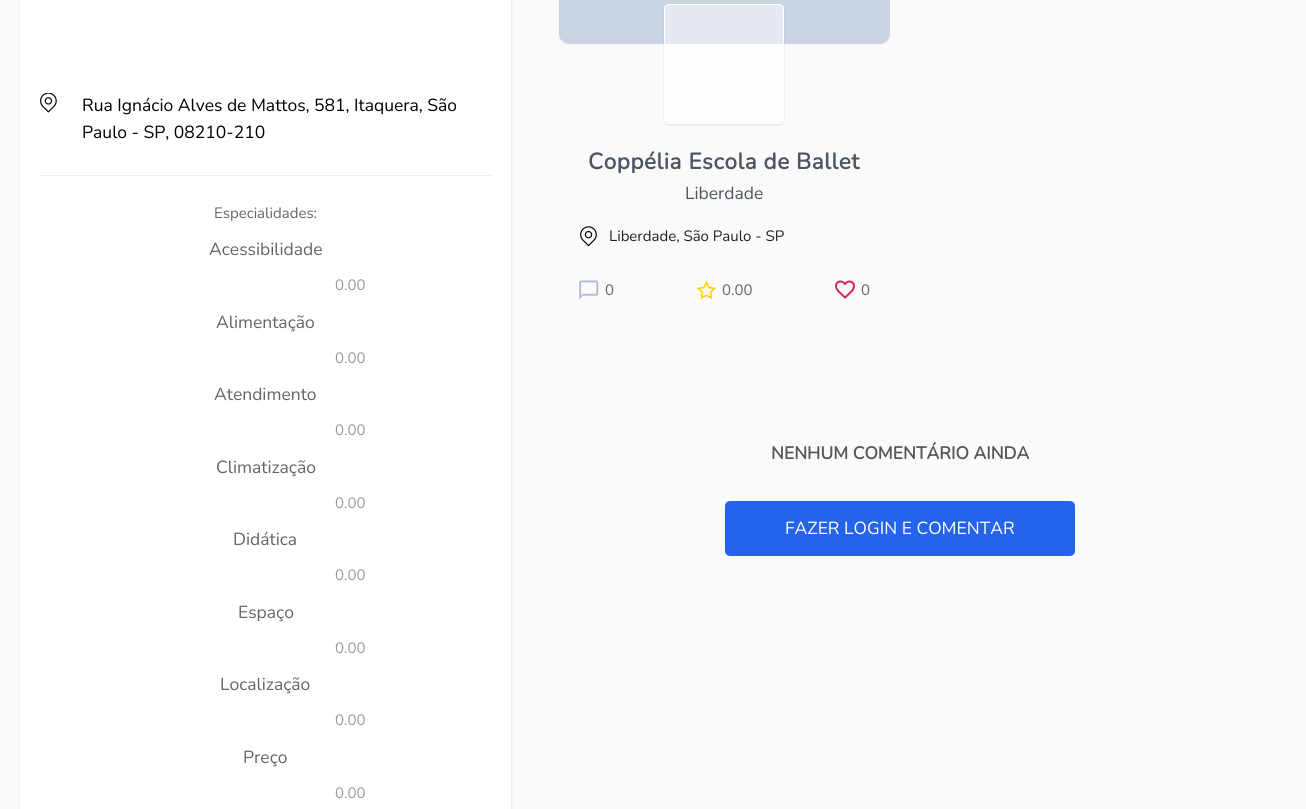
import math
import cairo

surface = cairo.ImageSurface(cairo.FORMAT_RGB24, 1306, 809)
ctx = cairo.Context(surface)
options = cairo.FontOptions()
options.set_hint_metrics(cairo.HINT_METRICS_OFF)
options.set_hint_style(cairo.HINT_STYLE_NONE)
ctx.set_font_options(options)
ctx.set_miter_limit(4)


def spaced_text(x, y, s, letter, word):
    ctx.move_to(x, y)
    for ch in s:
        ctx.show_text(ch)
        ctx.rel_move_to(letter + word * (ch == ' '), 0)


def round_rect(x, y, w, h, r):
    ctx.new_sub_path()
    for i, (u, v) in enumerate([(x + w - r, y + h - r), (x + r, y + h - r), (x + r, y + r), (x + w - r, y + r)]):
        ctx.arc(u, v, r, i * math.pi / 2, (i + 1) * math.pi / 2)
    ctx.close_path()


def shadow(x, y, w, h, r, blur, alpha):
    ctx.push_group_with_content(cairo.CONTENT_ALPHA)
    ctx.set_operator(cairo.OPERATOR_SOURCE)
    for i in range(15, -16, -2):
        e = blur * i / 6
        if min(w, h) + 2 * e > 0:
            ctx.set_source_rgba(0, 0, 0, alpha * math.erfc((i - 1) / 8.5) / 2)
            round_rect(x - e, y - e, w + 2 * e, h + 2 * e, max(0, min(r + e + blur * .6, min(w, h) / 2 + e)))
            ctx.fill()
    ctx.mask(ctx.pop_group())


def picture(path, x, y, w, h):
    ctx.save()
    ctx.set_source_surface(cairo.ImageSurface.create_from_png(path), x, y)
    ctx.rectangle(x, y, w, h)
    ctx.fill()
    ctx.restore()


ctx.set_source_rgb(0.98, 0.98, 0.98)
ctx.paint()
ctx.set_source_rgb(0, 0, 0)
shadow(20, -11, 491, 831, 5, 2, 0.1)
ctx.set_source_rgb(1, 1, 1)
ctx.rectangle(20, 0, 491, 809)
ctx.fill()
picture("img1.png", 40, 93, 17, 20)
ctx.select_font_face("Nunito ExtraLight")
ctx.set_font_size(17.5)
ctx.set_source_rgb(0, 0, 0)
ctx.move_to(82, 111)
ctx.show_text("Rua Ignácio Alves de Mattos, 581, Itaquera, São")
ctx.move_to(82, 138)
ctx.show_text("Paulo - SP, 08210-210")
ctx.set_source_rgb(0.929, 0.933, 0.945)
ctx.rectangle(40, 175, 451, 1)
ctx.fill()
ctx.set_font_size(15)
ctx.set_source_rgb(0.392, 0.392, 0.392)
ctx.move_to(214, 218)
ctx.show_text("Especialidades:")
ctx.set_font_size(17.5)
ctx.move_to(209, 255)
ctx.show_text("Acessibilidade")
ctx.set_font_size(15)
ctx.set_source_rgb(0.6, 0.6, 0.6)
ctx.move_to(335, 290)
ctx.show_text("0.00")
ctx.set_font_size(17.5)
ctx.set_source_rgb(0.392, 0.392, 0.392)
ctx.move_to(216, 328)
ctx.show_text("Alimentação")
ctx.set_font_size(15)
ctx.set_source_rgb(0.6, 0.6, 0.6)
ctx.move_to(335, 363)
ctx.show_text("0.00")
ctx.set_font_size(17.5)
ctx.set_source_rgb(0.392, 0.392, 0.392)
ctx.move_to(214, 400)
ctx.show_text("Atendimento")
ctx.set_font_size(15)
ctx.set_source_rgb(0.6, 0.6, 0.6)
ctx.move_to(335, 435)
ctx.show_text("0.00")
ctx.set_font_size(17.5)
ctx.set_source_rgb(0.392, 0.392, 0.392)
ctx.move_to(216, 473)
ctx.show_text("Climatização")
ctx.set_font_size(15)
ctx.set_source_rgb(0.6, 0.6, 0.6)
ctx.move_to(335, 508)
ctx.show_text("0.00")
ctx.set_font_size(17.5)
ctx.set_source_rgb(0.392, 0.392, 0.392)
ctx.move_to(233, 545)
ctx.show_text("Didática")
ctx.set_font_size(15)
ctx.set_source_rgb(0.6, 0.6, 0.6)
ctx.move_to(335, 580)
ctx.show_text("0.00")
ctx.set_font_size(17.5)
ctx.set_source_rgb(0.392, 0.392, 0.392)
ctx.move_to(238, 618)
ctx.show_text("Espaço")
ctx.set_font_size(15)
ctx.set_source_rgb(0.6, 0.6, 0.6)
ctx.move_to(335, 653)
ctx.show_text("0.00")
ctx.set_font_size(17.5)
ctx.set_source_rgb(0.392, 0.392, 0.392)
ctx.move_to(220, 690)
ctx.show_text("Localização")
ctx.set_font_size(15)
ctx.set_source_rgb(0.6, 0.6, 0.6)
ctx.move_to(335, 725)
ctx.show_text("0.00")
ctx.set_font_size(17.5)
ctx.set_source_rgb(0.392, 0.392, 0.392)
ctx.move_to(243, 763)
ctx.show_text("Preço")
ctx.set_font_size(15)
ctx.set_source_rgb(0.6, 0.6, 0.6)
ctx.move_to(335, 798)
ctx.show_text("0.00")
ctx.set_source_rgb(0.796, 0.835, 0.882)
round_rect(559, -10, 331, 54, 10)
ctx.fill()
ctx.save()
ctx.set_fill_rule(cairo.FILL_RULE_EVEN_ODD)
ctx.new_path()
ctx.move_to(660, 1)
ctx.line_to(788, 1)
ctx.line_to(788, 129)
ctx.line_to(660, 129)
ctx.close_path()
ctx.move_to(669, 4)
ctx.line_to(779, 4)
ctx.curve_to(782, 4, 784, 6, 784, 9)
ctx.line_to(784, 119)
ctx.curve_to(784, 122, 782, 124, 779, 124)
ctx.line_to(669, 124)
ctx.curve_to(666, 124, 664, 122, 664, 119)
ctx.line_to(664, 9)
ctx.curve_to(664, 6, 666, 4, 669, 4)
ctx.close_path()
ctx.clip()
ctx.set_source_rgb(0, 0, 0)
shadow(664, 5, 120, 120, 5, 1, 0.1)
ctx.restore()
ctx.set_source_rgba(1, 1, 1, 0.5)
round_rect(664.5, 4.5, 119, 119, 4.5)
ctx.fill_preserve()
ctx.set_source_rgb(1, 1, 1)
ctx.set_line_width(1)
ctx.stroke()
ctx.select_font_face("Nunito", cairo.FONT_SLANT_NORMAL, cairo.FONT_WEIGHT_BOLD)
ctx.set_font_size(22.5)
ctx.set_source_rgb(0.294, 0.333, 0.388)
spaced_text(588, 169, "Coppélia Escola de Ballet", 0.55, 0)
ctx.select_font_face("Nunito ExtraLight")
ctx.set_font_size(17.5)
ctx.move_to(685, 199)
ctx.show_text("Liberdade")
picture("img2.png", 580, 226, 17, 20)
ctx.set_font_size(15)
ctx.set_source_rgb(0.133, 0.133, 0.133)
ctx.move_to(609, 241)
ctx.show_text("Liberdade, São Paulo - SP")
picture("img3.png", 579, 280, 20, 20)
ctx.set_source_rgb(0.392, 0.392, 0.392)
ctx.move_to(605, 295)
ctx.show_text("0")
picture("img4.png", 696, 280, 20, 20)
ctx.move_to(722, 295)
ctx.show_text("0.00")
picture("img5.png", 835, 280, 20, 19)
ctx.move_to(861, 295)
ctx.show_text("0")
ctx.select_font_face("Nunito", cairo.FONT_SLANT_NORMAL, cairo.FONT_WEIGHT_BOLD)
ctx.set_font_size(17.5)
ctx.set_source_rgb(0.341, 0.341, 0.341)
ctx.move_to(771, 459)
ctx.show_text("NENHUM COMENTÁRIO AINDA")
ctx.set_source_rgb(0.145, 0.388, 0.922)
round_rect(725, 501, 350, 55, 5)
ctx.fill()
ctx.select_font_face("Nunito ExtraLight")
ctx.set_source_rgb(1, 1, 1)
ctx.move_to(785, 534)
ctx.show_text("FAZER LOGIN E COMENTAR")
surface.write_to_png("page.png")
